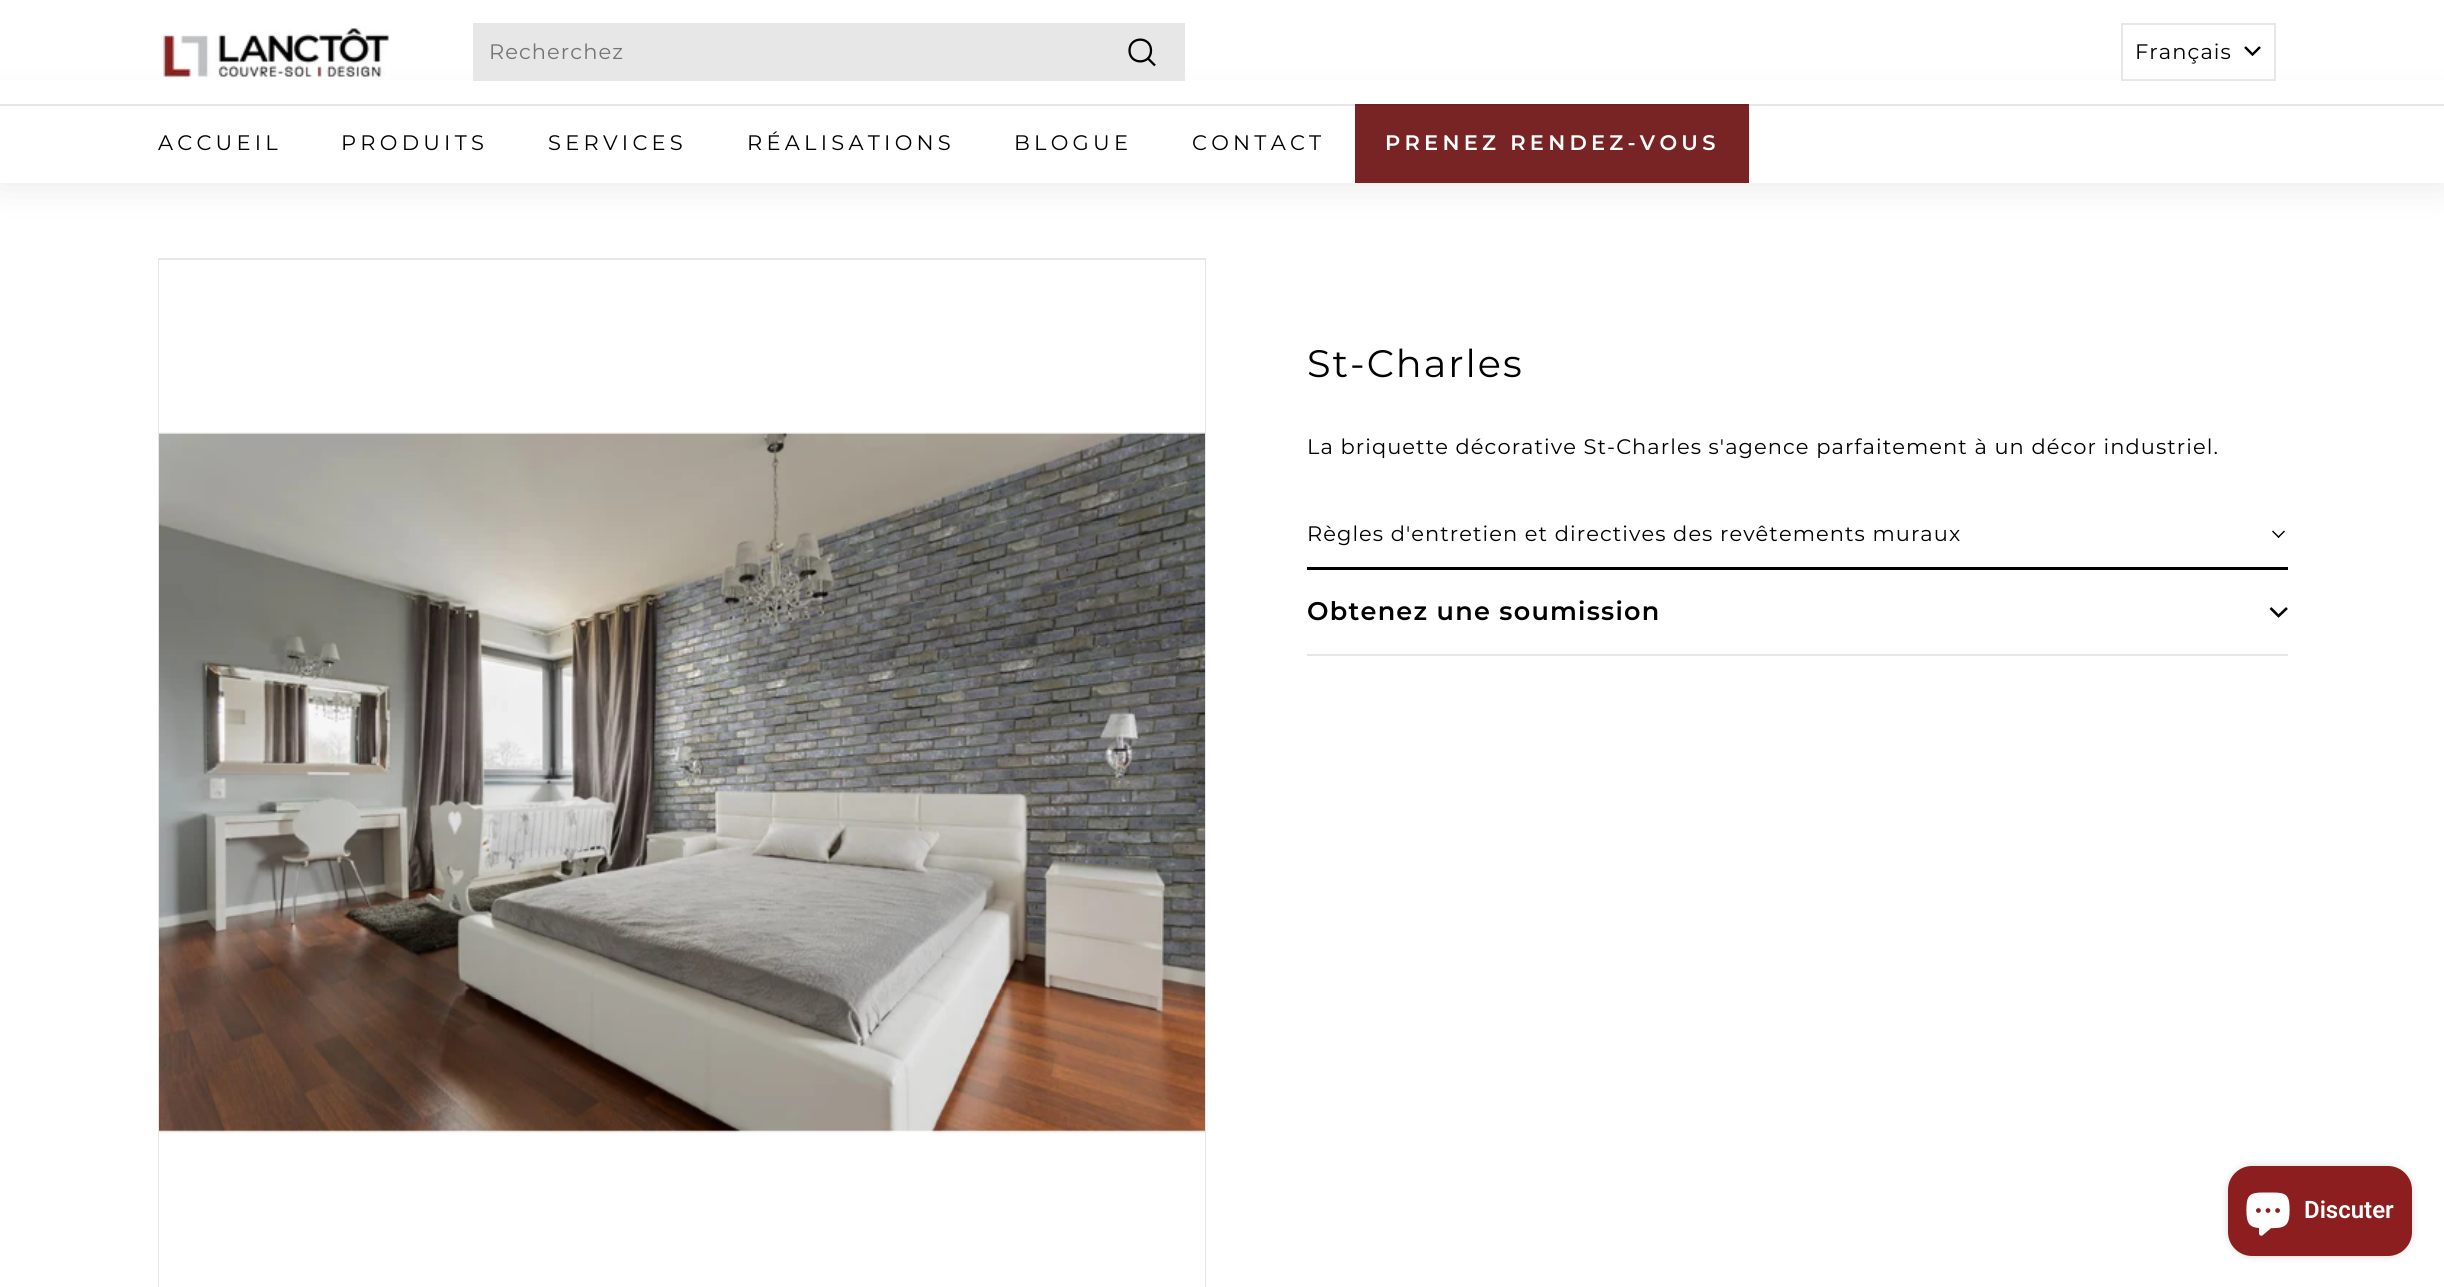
import math
import cairo

surface = cairo.ImageSurface(cairo.FORMAT_RGB24, 2444, 1287)
ctx = cairo.Context(surface)
options = cairo.FontOptions()
options.set_hint_metrics(cairo.HINT_METRICS_OFF)
options.set_hint_style(cairo.HINT_STYLE_NONE)
ctx.set_font_options(options)
ctx.set_miter_limit(4)


def spaced_text(x, y, s, letter, word):
    ctx.move_to(x, y)
    for ch in s:
        ctx.show_text(ch)
        ctx.rel_move_to(letter + word * (ch == ' '), 0)


def round_rect(x, y, w, h, r):
    ctx.new_sub_path()
    for i, (u, v) in enumerate([(x + w - r, y + h - r), (x + r, y + h - r), (x + r, y + r), (x + w - r, y + r)]):
        ctx.arc(u, v, r, i * math.pi / 2, (i + 1) * math.pi / 2)
    ctx.close_path()


def shadow(x, y, w, h, r, blur, alpha):
    ctx.push_group_with_content(cairo.CONTENT_ALPHA)
    ctx.set_operator(cairo.OPERATOR_SOURCE)
    for i in range(15, -16, -2):
        e = blur * i / 6
        if min(w, h) + 2 * e > 0:
            ctx.set_source_rgba(0, 0, 0, alpha * math.erfc((i - 1) / 8.5) / 2)
            round_rect(x - e, y - e, w + 2 * e, h + 2 * e, max(0, min(r + e + blur * .6, min(w, h) / 2 + e)))
            ctx.fill()
    ctx.mask(ctx.pop_group())


def picture(path, x, y, w, h):
    ctx.save()
    ctx.set_source_surface(cairo.ImageSurface.create_from_png(path), x, y)
    ctx.rectangle(x, y, w, h)
    ctx.fill()
    ctx.restore()


ctx.set_source_rgb(1, 1, 1)
ctx.paint()
ctx.set_source_rgb(0, 0, 0)
shadow(0, 104, 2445, 79, 0, 19, 0.1)
picture("img1.png", 161, 26, 229, 53)
ctx.set_source_rgb(1, 1, 1)
ctx.rectangle(0, 80, 2444, 103)
ctx.fill()
ctx.set_source_rgb(0.906, 0.906, 0.906)
ctx.rectangle(473, 23, 712, 58)
ctx.fill()
ctx.select_font_face("Montserrat")
ctx.set_font_size(21)
ctx.set_source_rgb(0.455, 0.455, 0.455)
spaced_text(489, 59, "Recherchez", 1.05, 0)
ctx.new_path()
ctx.move_to(1151, 50.5)
ctx.curve_to(1151, 65, 1129.5, 65, 1129.5, 50.5)
ctx.curve_to(1129.5, 36, 1151, 36, 1151, 50.5)
ctx.close_path()
ctx.move_to(1155, 65.5)
ctx.line_to(1148, 58.5)
ctx.set_source_rgb(0, 0, 0)
ctx.set_line_width(2.3)
ctx.stroke()
ctx.rectangle(2122, 24, 153, 56)
ctx.set_source_rgb(0.906, 0.906, 0.906)
ctx.set_line_width(2)
ctx.stroke()
ctx.set_source_rgb(0, 0, 0)
spaced_text(2135, 59, "Français", 1.05, 0)
ctx.new_path()
ctx.move_to(2245, 47)
ctx.line_to(2252.5, 54.5)
ctx.line_to(2260, 47)
ctx.set_line_width(2.4)
ctx.stroke()
ctx.set_source_rgb(0.471, 0.141, 0.145)
ctx.rectangle(1355, 104, 394, 79)
ctx.fill()
ctx.set_source_rgba(0, 0, 0, 0.1)
ctx.rectangle(0, 104, 2444, 2)
ctx.fill()
ctx.set_source_rgb(0, 0, 0)
spaced_text(158, 150, "ACCUEIL", 4.25, 0)
spaced_text(341, 150, "PRODUITS", 4.25, 0)
spaced_text(548, 150, "SERVICES", 4.25, 0)
spaced_text(747, 150, "RÉALISATIONS", 4.25, 0)
spaced_text(1014, 150, "BLOGUE", 4.25, 0)
spaced_text(1192, 150, "CONTACT", 4.25, 0)
ctx.select_font_face("Montserrat SemiBold")
ctx.set_source_rgb(1, 1, 1)
spaced_text(1385, 150, "PRENEZ RENDEZ-VOUS", 4.25, 0)
ctx.rectangle(159, 259, 1046, 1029)
ctx.set_source_rgb(0.906, 0.906, 0.906)
ctx.set_line_width(2)
ctx.stroke()
ctx.set_source_rgb(1, 1, 1)
ctx.rectangle(159, 260, 1046, 1027)
ctx.fill()
picture("img2.png", 159, 432, 1046, 701)
ctx.select_font_face("Montserrat")
ctx.set_font_size(38.25)
ctx.set_source_rgb(0, 0, 0)
spaced_text(1307, 377, "St-Charles", 2, 0)
ctx.set_font_size(21)
spaced_text(1307, 454, "La briquette décorative St-Charles s'agence parfaitement à un décor industriel.", 1.05, 0)
ctx.rectangle(1307, 567, 981, 3)
ctx.fill()
spaced_text(1307, 541, "Règles d'entretien et directives des revêtements muraux", 1.05, 0)
ctx.new_path()
ctx.move_to(2284, 530.5)
ctx.line_to(2285, 531.5)
ctx.line_to(2278.5, 538)
ctx.line_to(2277.5, 537)
ctx.close_path()
ctx.fill()
ctx.new_path()
ctx.move_to(2273, 530.5)
ctx.line_to(2279.5, 537)
ctx.line_to(2278.5, 538)
ctx.line_to(2272, 531.5)
ctx.close_path()
ctx.fill()
ctx.set_source_rgb(0.906, 0.906, 0.906)
ctx.rectangle(1307, 654, 981, 2)
ctx.fill()
ctx.select_font_face("Montserrat SemiBold")
ctx.set_font_size(25.5)
ctx.set_source_rgb(0, 0, 0)
spaced_text(1307, 620, "Obtenez une soumission", 1.25, 0)
ctx.new_path()
ctx.move_to(2270.5, 608)
ctx.line_to(2278.5, 616)
ctx.line_to(2287, 608)
ctx.set_line_width(2.6)
ctx.stroke()
ctx.set_source_rgb(0, 0, 0)
shadow(2228, 1166, 184, 90, 24, 4, 0.15)
ctx.set_source_rgb(0.549, 0.118, 0.122)
round_rect(2228, 1166, 184, 90, 24)
ctx.fill()
picture("img3.png", 2246, 1192, 44, 44)
ctx.select_font_face("Roboto SemiBold")
ctx.set_font_size(24)
ctx.set_source_rgb(1, 1, 1)
ctx.move_to(2304, 1218)
ctx.show_text("Discuter")
surface.write_to_png("page.png")
